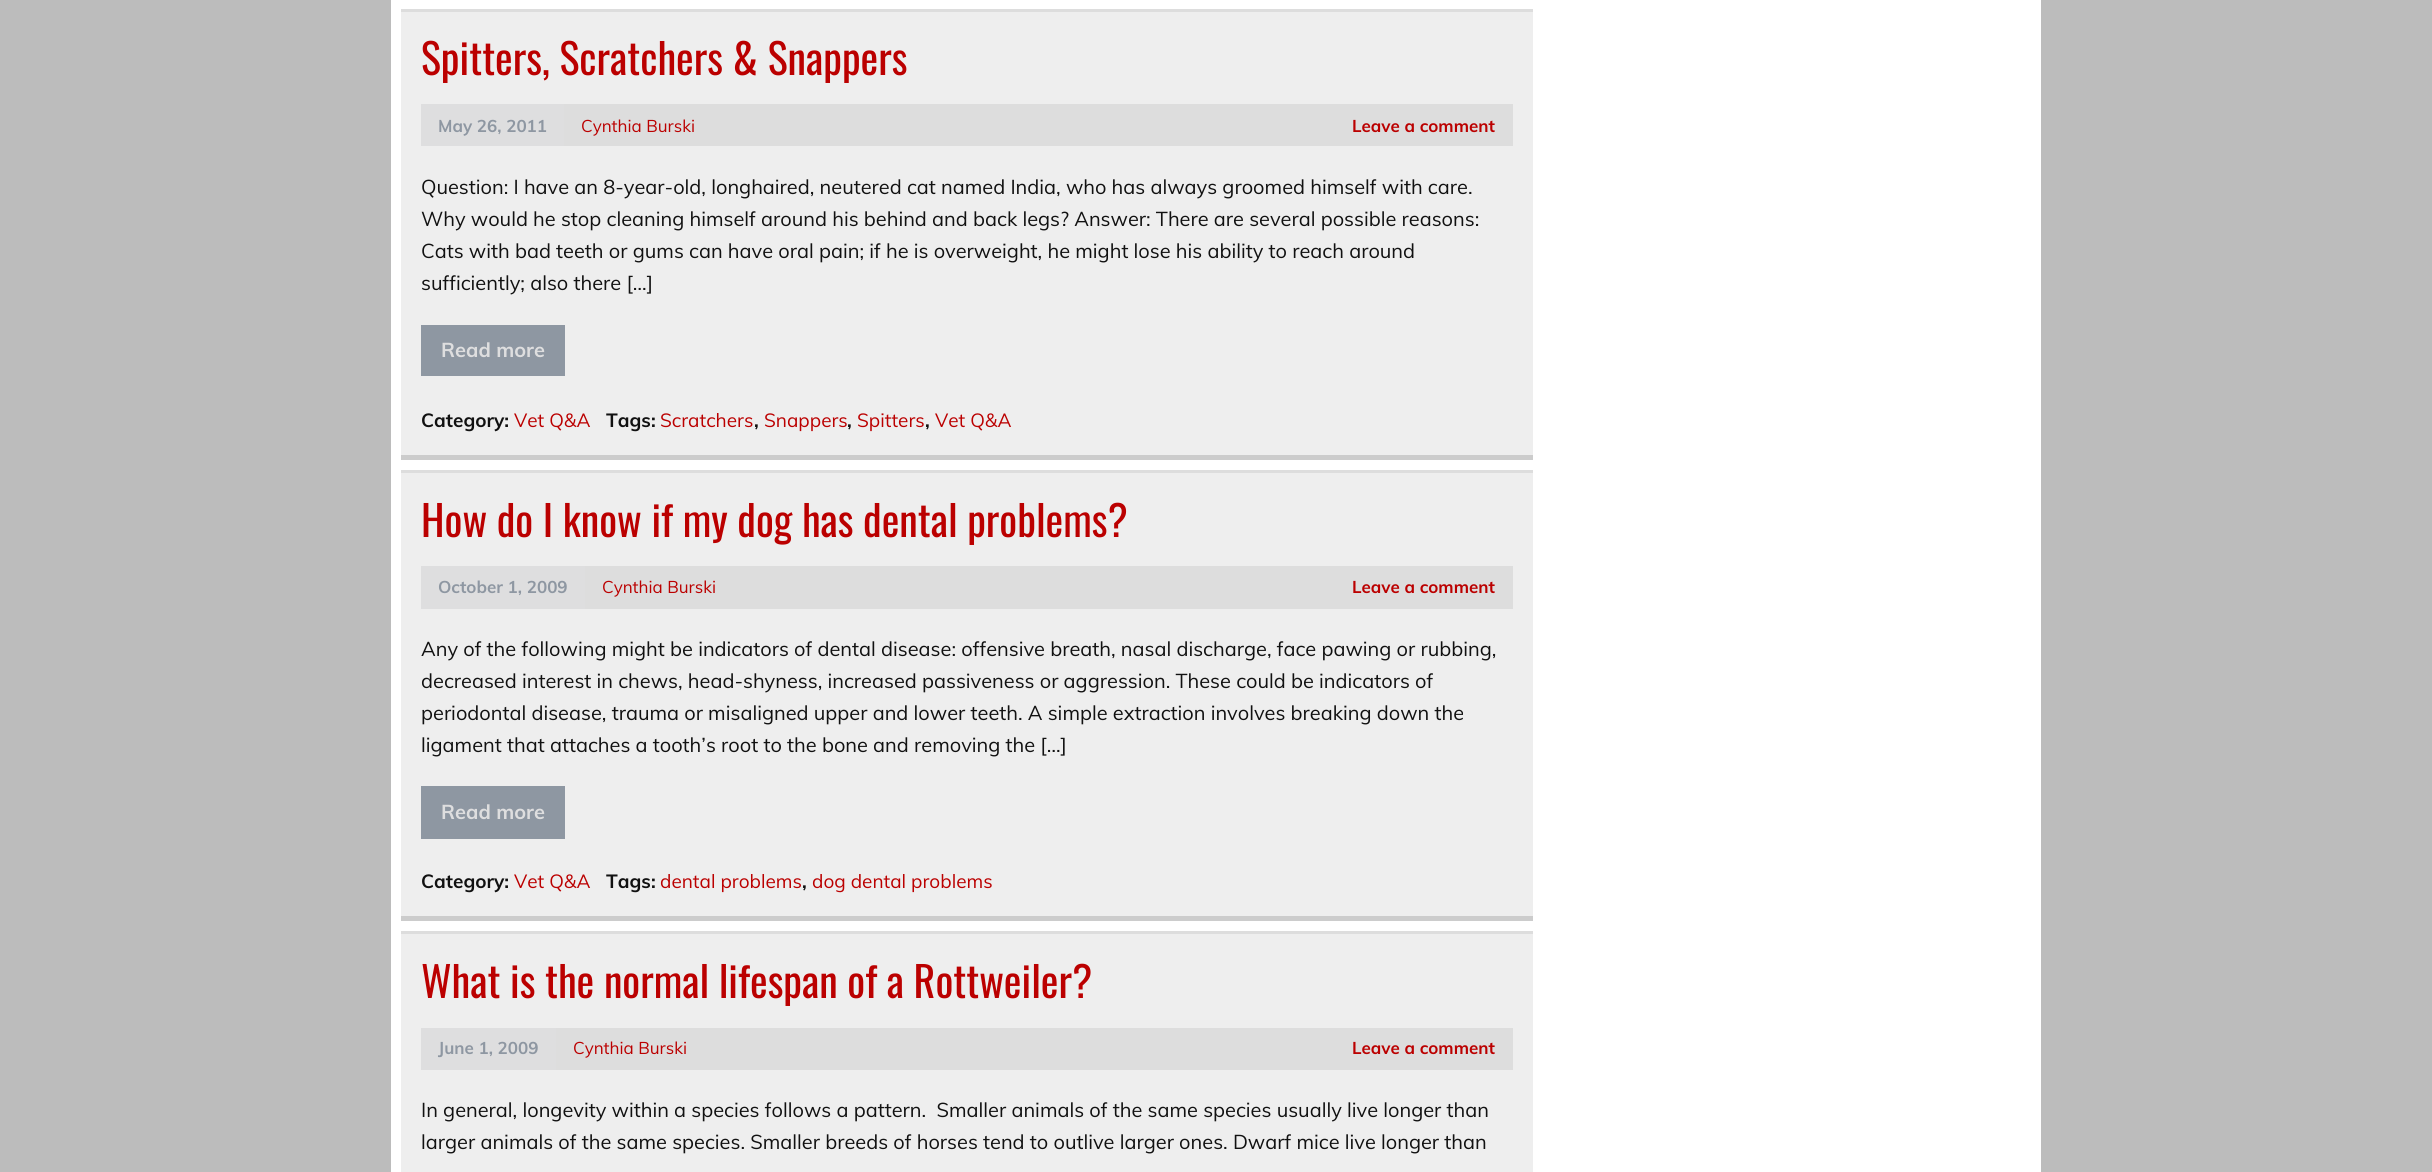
import math
import cairo

surface = cairo.ImageSurface(cairo.FORMAT_RGB24, 2432, 1172)
ctx = cairo.Context(surface)
options = cairo.FontOptions()
options.set_hint_metrics(cairo.HINT_METRICS_OFF)
options.set_hint_style(cairo.HINT_STYLE_NONE)
ctx.set_font_options(options)
ctx.set_miter_limit(4)


ctx.set_source_rgb(0.737, 0.737, 0.737)
ctx.paint()
ctx.set_source_rgb(1, 1, 1)
ctx.rectangle(391, 0, 1650, 1172)
ctx.fill()
ctx.set_source_rgb(0.933, 0.933, 0.933)
ctx.rectangle(401, 12, 1132, 443)
ctx.fill()
ctx.set_source_rgb(0.867, 0.867, 0.867)
ctx.rectangle(401, 9, 1132, 3)
ctx.fill()
ctx.set_source_rgb(0.8, 0.8, 0.8)
ctx.rectangle(401, 455, 1132, 5)
ctx.fill()
ctx.select_font_face("Oswald")
ctx.set_font_size(42)
ctx.set_source_rgb(0.733, 0, 0)
ctx.move_to(421, 75)
ctx.show_text("Spitters, Scratchers & Snappers")
ctx.set_source_rgb(0.867, 0.867, 0.867)
ctx.rectangle(564, 104, 949, 42)
ctx.fill()
ctx.set_source_rgb(0.871, 0.871, 0.875)
ctx.rectangle(421, 104, 143, 42)
ctx.fill()
ctx.select_font_face("Muli", cairo.FONT_SLANT_NORMAL, cairo.FONT_WEIGHT_BOLD)
ctx.set_font_size(17)
ctx.set_source_rgb(0.557, 0.592, 0.635)
ctx.move_to(438, 132)
ctx.show_text("May 26, 2011")
ctx.select_font_face("Muli")
ctx.set_source_rgb(0.733, 0, 0)
ctx.move_to(581, 132)
ctx.show_text("Cynthia Burski")
ctx.select_font_face("Muli", cairo.FONT_SLANT_NORMAL, cairo.FONT_WEIGHT_BOLD)
ctx.move_to(1352, 132)
ctx.show_text("Leave a comment")
ctx.select_font_face("Muli")
ctx.set_font_size(20)
ctx.set_source_rgb(0.067, 0.067, 0.067)
ctx.move_to(421, 194)
ctx.show_text("Question: I have an 8-year-old, longhaired, neutered cat named India, who has always groomed himself with care.")
ctx.move_to(421, 226)
ctx.show_text("Why would he stop cleaning himself around his behind and back legs? Answer: There are several possible reasons:")
ctx.move_to(421, 258)
ctx.show_text("Cats with bad teeth or gums can have oral pain; if he is overweight, he might lose his ability to reach around")
ctx.move_to(421, 290)
ctx.show_text("sufficiently; also there […]")
ctx.set_source_rgb(0.557, 0.592, 0.635)
ctx.rectangle(421, 325, 144, 51)
ctx.fill()
ctx.select_font_face("Muli", cairo.FONT_SLANT_NORMAL, cairo.FONT_WEIGHT_BOLD)
ctx.set_source_rgb(0.871, 0.871, 0.875)
ctx.move_to(441, 357)
ctx.show_text("Read more")
ctx.set_font_size(19)
ctx.set_source_rgb(0.067, 0.067, 0.067)
ctx.move_to(421, 427)
ctx.show_text("Category:")
ctx.select_font_face("Muli")
ctx.set_source_rgb(0.733, 0, 0)
ctx.move_to(514, 427)
ctx.show_text("Vet Q&A")
ctx.select_font_face("Muli", cairo.FONT_SLANT_NORMAL, cairo.FONT_WEIGHT_BOLD)
ctx.set_source_rgb(0.067, 0.067, 0.067)
ctx.move_to(606, 427)
ctx.show_text("Tags:")
ctx.select_font_face("Muli")
ctx.set_source_rgb(0.733, 0, 0)
ctx.move_to(660, 427)
ctx.show_text("Scratchers")
ctx.select_font_face("Muli", cairo.FONT_SLANT_NORMAL, cairo.FONT_WEIGHT_BOLD)
ctx.set_source_rgb(0.067, 0.067, 0.067)
ctx.move_to(754, 427)
ctx.show_text(",")
ctx.select_font_face("Muli")
ctx.set_source_rgb(0.733, 0, 0)
ctx.move_to(764, 427)
ctx.show_text("Snappers")
ctx.select_font_face("Muli", cairo.FONT_SLANT_NORMAL, cairo.FONT_WEIGHT_BOLD)
ctx.set_source_rgb(0.067, 0.067, 0.067)
ctx.move_to(847, 427)
ctx.show_text(",")
ctx.select_font_face("Muli")
ctx.set_source_rgb(0.733, 0, 0)
ctx.move_to(857, 427)
ctx.show_text("Spitters")
ctx.select_font_face("Muli", cairo.FONT_SLANT_NORMAL, cairo.FONT_WEIGHT_BOLD)
ctx.set_source_rgb(0.067, 0.067, 0.067)
ctx.move_to(925, 427)
ctx.show_text(",")
ctx.select_font_face("Muli")
ctx.set_source_rgb(0.733, 0, 0)
ctx.move_to(935, 427)
ctx.show_text("Vet Q&A")
ctx.set_source_rgb(0.933, 0.933, 0.933)
ctx.rectangle(401, 473, 1132, 443)
ctx.fill()
ctx.set_source_rgb(0.867, 0.867, 0.867)
ctx.rectangle(401, 470, 1132, 3)
ctx.fill()
ctx.set_source_rgb(0.8, 0.8, 0.8)
ctx.rectangle(401, 916, 1132, 5)
ctx.fill()
ctx.select_font_face("Oswald")
ctx.set_font_size(42)
ctx.set_source_rgb(0.733, 0, 0)
ctx.move_to(421, 537)
ctx.show_text("How do I know if my dog has dental problems?")
ctx.set_source_rgb(0.867, 0.867, 0.867)
ctx.rectangle(585, 566, 928, 43)
ctx.fill()
ctx.set_source_rgb(0.871, 0.871, 0.875)
ctx.rectangle(421, 566, 164, 43)
ctx.fill()
ctx.select_font_face("Muli", cairo.FONT_SLANT_NORMAL, cairo.FONT_WEIGHT_BOLD)
ctx.set_font_size(17)
ctx.set_source_rgb(0.557, 0.592, 0.635)
ctx.move_to(438, 593)
ctx.show_text("October 1, 2009")
ctx.select_font_face("Muli")
ctx.set_source_rgb(0.733, 0, 0)
ctx.move_to(602, 593)
ctx.show_text("Cynthia Burski")
ctx.select_font_face("Muli", cairo.FONT_SLANT_NORMAL, cairo.FONT_WEIGHT_BOLD)
ctx.move_to(1352, 593)
ctx.show_text("Leave a comment")
ctx.select_font_face("Muli")
ctx.set_font_size(20)
ctx.set_source_rgb(0.067, 0.067, 0.067)
ctx.move_to(421, 656)
ctx.show_text("Any of the following might be indicators of dental disease: offensive breath, nasal discharge, face pawing or rubbing,")
ctx.move_to(421, 688)
ctx.show_text("decreased interest in chews, head-shyness, increased passiveness or aggression. These could be indicators of")
ctx.move_to(421, 720)
ctx.show_text("periodontal disease, trauma or misaligned upper and lower teeth. A simple extraction involves breaking down the")
ctx.move_to(421, 752)
ctx.show_text("ligament that attaches a tooth’s root to the bone and removing the […]")
ctx.set_source_rgb(0.557, 0.592, 0.635)
ctx.rectangle(421, 786, 144, 53)
ctx.fill()
ctx.select_font_face("Muli", cairo.FONT_SLANT_NORMAL, cairo.FONT_WEIGHT_BOLD)
ctx.set_source_rgb(0.871, 0.871, 0.875)
ctx.move_to(441, 819)
ctx.show_text("Read more")
ctx.set_font_size(19)
ctx.set_source_rgb(0.067, 0.067, 0.067)
ctx.move_to(421, 888)
ctx.show_text("Category:")
ctx.select_font_face("Muli")
ctx.set_source_rgb(0.733, 0, 0)
ctx.move_to(514, 888)
ctx.show_text("Vet Q&A")
ctx.select_font_face("Muli", cairo.FONT_SLANT_NORMAL, cairo.FONT_WEIGHT_BOLD)
ctx.set_source_rgb(0.067, 0.067, 0.067)
ctx.move_to(606, 888)
ctx.show_text("Tags:")
ctx.select_font_face("Muli")
ctx.set_source_rgb(0.733, 0, 0)
ctx.move_to(660, 888)
ctx.show_text("dental problems")
ctx.select_font_face("Muli", cairo.FONT_SLANT_NORMAL, cairo.FONT_WEIGHT_BOLD)
ctx.set_source_rgb(0.067, 0.067, 0.067)
ctx.move_to(802, 888)
ctx.show_text(",")
ctx.select_font_face("Muli")
ctx.set_source_rgb(0.733, 0, 0)
ctx.move_to(812, 888)
ctx.show_text("dog dental problems")
ctx.set_source_rgb(0.933, 0.933, 0.933)
ctx.rectangle(401, 934, 1132, 238)
ctx.fill()
ctx.set_source_rgb(0.867, 0.867, 0.867)
ctx.rectangle(401, 931, 1132, 3)
ctx.fill()
ctx.select_font_face("Oswald")
ctx.set_font_size(42)
ctx.set_source_rgb(0.733, 0, 0)
ctx.move_to(421, 998)
ctx.show_text("What is the normal lifespan of a Rottweiler?")
ctx.set_source_rgb(0.867, 0.867, 0.867)
ctx.rectangle(556, 1028, 957, 42)
ctx.fill()
ctx.set_source_rgb(0.871, 0.871, 0.875)
ctx.rectangle(421, 1028, 135, 42)
ctx.fill()
ctx.select_font_face("Muli", cairo.FONT_SLANT_NORMAL, cairo.FONT_WEIGHT_BOLD)
ctx.set_font_size(17)
ctx.set_source_rgb(0.557, 0.592, 0.635)
ctx.move_to(438, 1054)
ctx.show_text("June 1, 2009")
ctx.select_font_face("Muli")
ctx.set_source_rgb(0.733, 0, 0)
ctx.move_to(573, 1054)
ctx.show_text("Cynthia Burski")
ctx.select_font_face("Muli", cairo.FONT_SLANT_NORMAL, cairo.FONT_WEIGHT_BOLD)
ctx.move_to(1352, 1054)
ctx.show_text("Leave a comment")
ctx.select_font_face("Muli")
ctx.set_font_size(20)
ctx.set_source_rgb(0.067, 0.067, 0.067)
ctx.move_to(421, 1117)
ctx.show_text("In general, longevity within a species follows a pattern.  Smaller animals of the same species usually live longer than")
ctx.move_to(421, 1149)
ctx.show_text("larger animals of the same species. Smaller breeds of horses tend to outlive larger ones. Dwarf mice live longer than")
surface.write_to_png("page.png")
